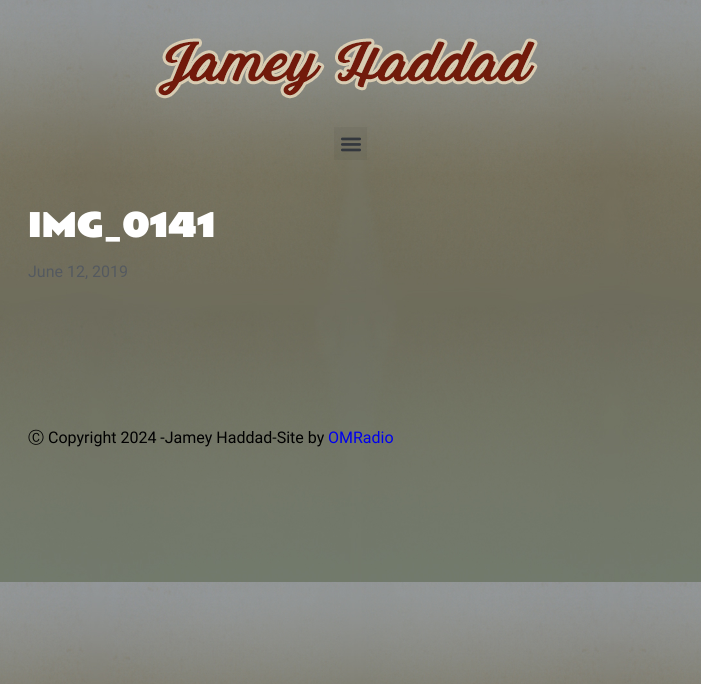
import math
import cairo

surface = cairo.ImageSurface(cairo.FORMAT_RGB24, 701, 684)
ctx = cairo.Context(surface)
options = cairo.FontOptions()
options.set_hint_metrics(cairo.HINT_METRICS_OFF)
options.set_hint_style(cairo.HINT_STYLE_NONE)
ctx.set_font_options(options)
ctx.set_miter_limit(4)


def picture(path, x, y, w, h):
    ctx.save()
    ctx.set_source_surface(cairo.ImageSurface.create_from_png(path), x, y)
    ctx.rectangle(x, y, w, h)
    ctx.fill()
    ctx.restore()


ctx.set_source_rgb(1, 1, 1)
ctx.paint()
picture("img1.png", 0, 0, 701, 684)
picture("img2.png", 155, 38, 383, 61)
ctx.set_source_rgba(0, 0, 0, 0.05)
ctx.rectangle(334, 127, 33, 33)
ctx.fill()
picture("img3.png", 341, 137, 20, 15)
ctx.select_font_face("Rammetto One")
ctx.set_font_size(32)
ctx.set_source_rgb(1, 1, 1)
ctx.move_to(28, 237)
ctx.show_text("IMG_0141")
ctx.select_font_face("Roboto")
ctx.set_font_size(16)
ctx.set_source_rgb(0.329, 0.349, 0.373)
ctx.move_to(28, 277)
ctx.show_text("June 12, 2019")
ctx.select_font_face("WenQuanYi Zen Hei Medium")
ctx.set_source_rgb(0, 0, 0)
ctx.move_to(28, 443)
ctx.show_text("Ⓒ")
ctx.select_font_face("Roboto")
ctx.move_to(48, 443)
ctx.show_text("Copyright 2024 -Jamey Haddad-Site by")
ctx.set_source_rgb(0, 0, 0.933)
ctx.move_to(328, 443)
ctx.show_text("OMRadio")
surface.write_to_png("page.png")
